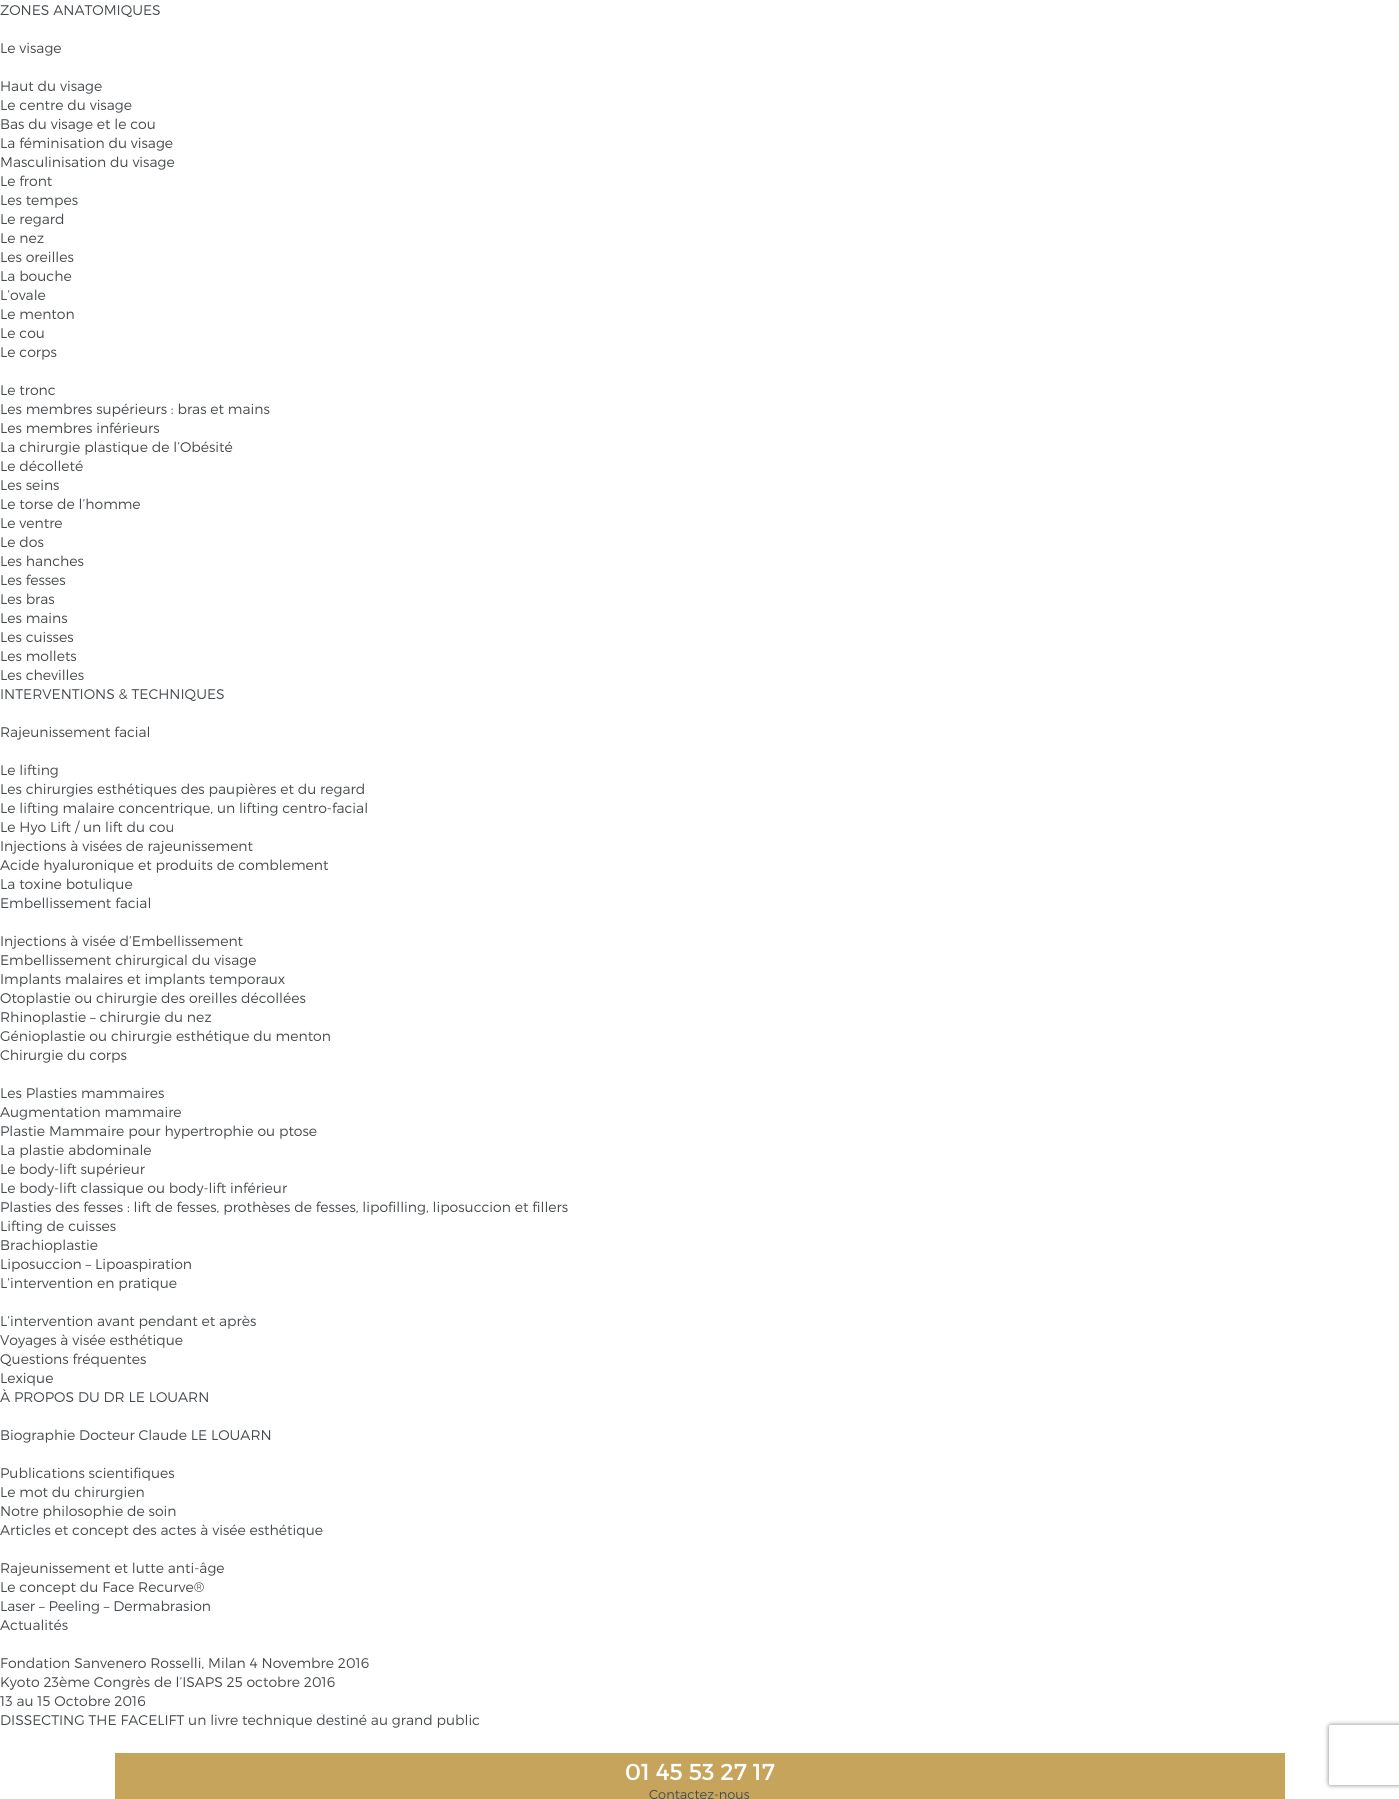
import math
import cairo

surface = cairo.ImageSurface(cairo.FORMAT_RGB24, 1399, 1799)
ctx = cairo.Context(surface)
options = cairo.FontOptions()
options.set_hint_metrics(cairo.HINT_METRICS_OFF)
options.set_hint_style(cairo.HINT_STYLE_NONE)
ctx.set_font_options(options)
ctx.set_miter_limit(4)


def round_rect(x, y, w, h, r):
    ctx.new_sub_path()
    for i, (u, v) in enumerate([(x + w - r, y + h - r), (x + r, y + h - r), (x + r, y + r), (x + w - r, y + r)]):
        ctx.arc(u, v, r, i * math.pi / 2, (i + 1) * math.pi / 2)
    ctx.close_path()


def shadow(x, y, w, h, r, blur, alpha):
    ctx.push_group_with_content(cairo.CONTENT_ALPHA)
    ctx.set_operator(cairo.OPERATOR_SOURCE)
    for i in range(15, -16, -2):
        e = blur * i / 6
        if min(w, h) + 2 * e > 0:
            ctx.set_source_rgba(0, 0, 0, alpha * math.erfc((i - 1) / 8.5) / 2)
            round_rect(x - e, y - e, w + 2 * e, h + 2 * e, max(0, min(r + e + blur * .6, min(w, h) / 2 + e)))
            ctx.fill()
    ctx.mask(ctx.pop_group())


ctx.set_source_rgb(1, 1, 1)
ctx.paint()
ctx.select_font_face("Montserrat Light")
ctx.set_font_size(14)
ctx.set_source_rgb(0.278, 0.294, 0.306)
ctx.move_to(0, 15)
ctx.show_text("ZONES ANATOMIQUES")
ctx.move_to(0, 53)
ctx.show_text("Le visage")
ctx.move_to(0, 91)
ctx.show_text("Haut du visage")
ctx.move_to(0, 110)
ctx.show_text("Le centre du visage")
ctx.move_to(0, 129)
ctx.show_text("Bas du visage et le cou")
ctx.move_to(0, 148)
ctx.show_text("La féminisation du visage")
ctx.move_to(0, 167)
ctx.show_text("Masculinisation du visage")
ctx.move_to(0, 186)
ctx.show_text("Le front")
ctx.move_to(0, 205)
ctx.show_text("Les tempes")
ctx.move_to(0, 224)
ctx.show_text("Le regard")
ctx.move_to(0, 243)
ctx.show_text("Le nez")
ctx.move_to(0, 262)
ctx.show_text("Les oreilles")
ctx.move_to(0, 281)
ctx.show_text("La bouche")
ctx.move_to(0, 300)
ctx.show_text("L’ovale")
ctx.move_to(0, 319)
ctx.show_text("Le menton")
ctx.move_to(0, 338)
ctx.show_text("Le cou")
ctx.move_to(0, 357)
ctx.show_text("Le corps")
ctx.move_to(0, 395)
ctx.show_text("Le tronc")
ctx.move_to(0, 414)
ctx.show_text("Les membres supérieurs : bras et mains")
ctx.move_to(0, 433)
ctx.show_text("Les membres inférieurs")
ctx.move_to(0, 452)
ctx.show_text("La chirurgie plastique de l’Obésité")
ctx.move_to(0, 471)
ctx.show_text("Le décolleté")
ctx.move_to(0, 490)
ctx.show_text("Les seins")
ctx.move_to(0, 509)
ctx.show_text("Le torse de l’homme")
ctx.move_to(0, 528)
ctx.show_text("Le ventre")
ctx.move_to(0, 547)
ctx.show_text("Le dos")
ctx.move_to(0, 566)
ctx.show_text("Les hanches")
ctx.move_to(0, 585)
ctx.show_text("Les fesses")
ctx.move_to(0, 604)
ctx.show_text("Les bras")
ctx.move_to(0, 623)
ctx.show_text("Les mains")
ctx.move_to(0, 642)
ctx.show_text("Les cuisses")
ctx.move_to(0, 661)
ctx.show_text("Les mollets")
ctx.move_to(0, 680)
ctx.show_text("Les chevilles")
ctx.move_to(0, 699)
ctx.show_text("INTERVENTIONS & TECHNIQUES")
ctx.move_to(0, 737)
ctx.show_text("Rajeunissement facial")
ctx.move_to(0, 775)
ctx.show_text("Le lifting")
ctx.move_to(0, 794)
ctx.show_text("Les chirurgies esthétiques des paupières et du regard")
ctx.move_to(0, 813)
ctx.show_text("Le lifting malaire concentrique, un lifting centro-facial")
ctx.move_to(0, 832)
ctx.show_text("Le Hyo Lift / un lift du cou")
ctx.move_to(0, 851)
ctx.show_text("Injections à visées de rajeunissement")
ctx.move_to(0, 870)
ctx.show_text("Acide hyaluronique et produits de comblement")
ctx.move_to(0, 889)
ctx.show_text("La toxine botulique")
ctx.move_to(0, 908)
ctx.show_text("Embellissement facial")
ctx.move_to(0, 946)
ctx.show_text("Injections à visée d’Embellissement")
ctx.move_to(0, 965)
ctx.show_text("Embellissement chirurgical du visage")
ctx.move_to(0, 984)
ctx.show_text("Implants malaires et implants temporaux")
ctx.move_to(0, 1003)
ctx.show_text("Otoplastie ou chirurgie des oreilles décollées")
ctx.move_to(0, 1022)
ctx.show_text("Rhinoplastie – chirurgie du nez")
ctx.move_to(0, 1041)
ctx.show_text("Génioplastie ou chirurgie esthétique du menton")
ctx.move_to(0, 1060)
ctx.show_text("Chirurgie du corps")
ctx.move_to(0, 1098)
ctx.show_text("Les Plasties mammaires")
ctx.move_to(0, 1117)
ctx.show_text("Augmentation mammaire")
ctx.move_to(0, 1136)
ctx.show_text("Plastie Mammaire pour hypertrophie ou ptose")
ctx.move_to(0, 1155)
ctx.show_text("La plastie abdominale")
ctx.move_to(0, 1174)
ctx.show_text("Le body-lift supérieur")
ctx.move_to(0, 1193)
ctx.show_text("Le body-lift classique ou body-lift inférieur")
ctx.move_to(0, 1212)
ctx.show_text("Plasties des fesses : lift de fesses, prothèses de fesses, lipofilling, liposuccion et fillers")
ctx.move_to(0, 1231)
ctx.show_text("Lifting de cuisses")
ctx.move_to(0, 1250)
ctx.show_text("Brachioplastie")
ctx.move_to(0, 1269)
ctx.show_text("Liposuccion – Lipoaspiration")
ctx.move_to(0, 1288)
ctx.show_text("L’intervention en pratique")
ctx.move_to(0, 1326)
ctx.show_text("L’intervention avant pendant et après")
ctx.move_to(0, 1345)
ctx.show_text("Voyages à visée esthétique")
ctx.move_to(0, 1364)
ctx.show_text("Questions fréquentes")
ctx.move_to(0, 1383)
ctx.show_text("Lexique")
ctx.move_to(0, 1402)
ctx.show_text("À PROPOS DU DR LE LOUARN")
ctx.move_to(0, 1440)
ctx.show_text("Biographie Docteur Claude LE LOUARN")
ctx.move_to(0, 1478)
ctx.show_text("Publications scientifiques")
ctx.move_to(0, 1497)
ctx.show_text("Le mot du chirurgien")
ctx.move_to(0, 1516)
ctx.show_text("Notre philosophie de soin")
ctx.move_to(0, 1535)
ctx.show_text("Articles et concept des actes à visée esthétique")
ctx.move_to(0, 1573)
ctx.show_text("Rajeunissement et lutte anti-âge")
ctx.move_to(0, 1592)
ctx.show_text("Le concept du Face Recurve®")
ctx.move_to(0, 1611)
ctx.show_text("Laser – Peeling – Dermabrasion")
ctx.move_to(0, 1630)
ctx.show_text("Actualités")
ctx.move_to(0, 1668)
ctx.show_text("Fondation Sanvenero Rosselli, Milan 4 Novembre 2016")
ctx.move_to(0, 1687)
ctx.show_text("Kyoto 23ème Congrès de l’ISAPS 25 octobre 2016")
ctx.move_to(0, 1706)
ctx.show_text("13 au 15 Octobre 2016")
ctx.move_to(0, 1725)
ctx.show_text("DISSECTING THE FACELIFT un livre technique destiné au grand public")
ctx.set_source_rgb(0.776, 0.643, 0.361)
ctx.rectangle(115, 1753, 1170, 46)
ctx.fill()
ctx.select_font_face("Montserrat")
ctx.set_font_size(23)
ctx.set_source_rgb(1, 1, 1)
ctx.move_to(625, 1780)
ctx.show_text("01 45 53 27 17")
ctx.select_font_face("Montserrat Light")
ctx.set_font_size(13)
ctx.set_source_rgb(0.278, 0.294, 0.306)
ctx.move_to(649, 1799)
ctx.show_text("Contactez-nous")
ctx.save()
ctx.set_fill_rule(cairo.FILL_RULE_EVEN_ODD)
ctx.new_path()
ctx.move_to(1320, 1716)
ctx.line_to(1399, 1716)
ctx.line_to(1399, 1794)
ctx.line_to(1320, 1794)
ctx.close_path()
ctx.move_to(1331, 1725)
ctx.line_to(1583, 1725)
ctx.curve_to(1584, 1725, 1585, 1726, 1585, 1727)
ctx.line_to(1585, 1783)
ctx.curve_to(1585, 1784, 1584, 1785, 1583, 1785)
ctx.line_to(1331, 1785)
ctx.curve_to(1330, 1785, 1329, 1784, 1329, 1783)
ctx.line_to(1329, 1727)
ctx.curve_to(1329, 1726, 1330, 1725, 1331, 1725)
ctx.close_path()
ctx.clip()
ctx.set_source_rgb(0.502, 0.502, 0.502)
shadow(1329, 1725, 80, 60, 2, 2.5, 1)
ctx.restore()
surface.write_to_png("page.png")
